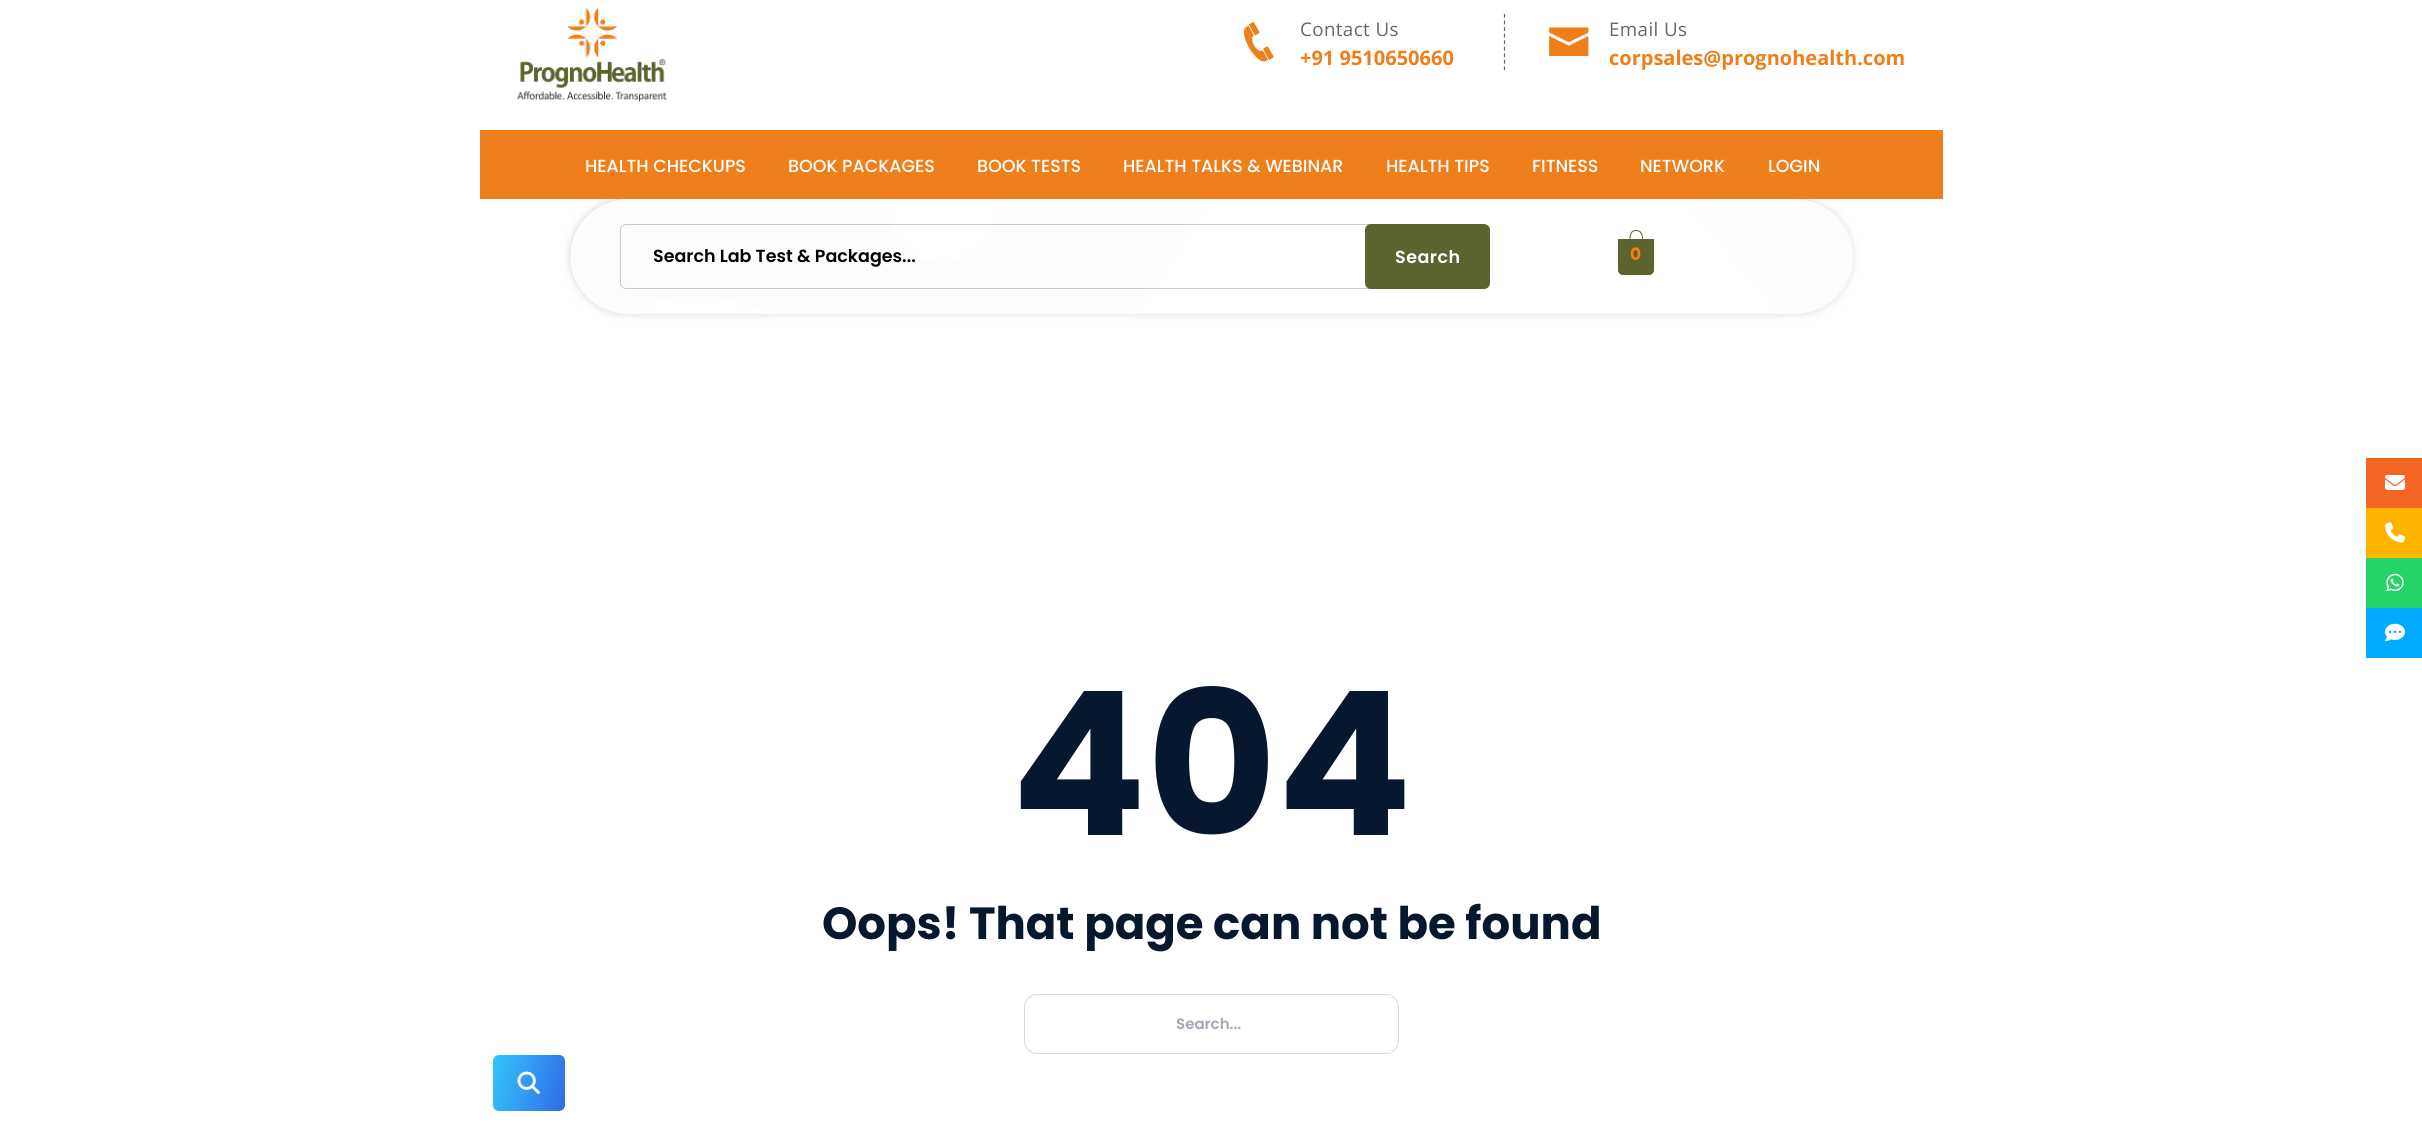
import math
import cairo

surface = cairo.ImageSurface(cairo.FORMAT_RGB24, 2422, 1145)
ctx = cairo.Context(surface)
options = cairo.FontOptions()
options.set_hint_metrics(cairo.HINT_METRICS_OFF)
options.set_hint_style(cairo.HINT_STYLE_NONE)
ctx.set_font_options(options)
ctx.set_miter_limit(4)


def spaced_text(x, y, s, letter, word):
    ctx.move_to(x, y)
    for ch in s:
        ctx.show_text(ch)
        ctx.rel_move_to(letter + word * (ch == ' '), 0)


def round_rect(x, y, w, h, r):
    ctx.new_sub_path()
    for i, (u, v) in enumerate([(x + w - r, y + h - r), (x + r, y + h - r), (x + r, y + r), (x + w - r, y + r)]):
        ctx.arc(u, v, r, i * math.pi / 2, (i + 1) * math.pi / 2)
    ctx.close_path()


def shadow(x, y, w, h, r, blur, alpha):
    ctx.push_group_with_content(cairo.CONTENT_ALPHA)
    ctx.set_operator(cairo.OPERATOR_SOURCE)
    for i in range(15, -16, -2):
        e = blur * i / 6
        if min(w, h) + 2 * e > 0:
            ctx.set_source_rgba(0, 0, 0, alpha * math.erfc((i - 1) / 8.5) / 2)
            round_rect(x - e, y - e, w + 2 * e, h + 2 * e, max(0, min(r + e + blur * .6, min(w, h) / 2 + e)))
            ctx.fill()
    ctx.mask(ctx.pop_group())


def picture(path, x, y, w, h):
    ctx.save()
    ctx.set_source_surface(cairo.ImageSurface.create_from_png(path), x, y)
    ctx.rectangle(x, y, w, h)
    ctx.fill()
    ctx.restore()


ctx.set_source_rgb(1, 1, 1)
ctx.paint()
picture("img1.png", 517, 7, 150, 95)
ctx.new_path()
ctx.move_to(1504.5, 14)
ctx.line_to(1504.5, 70)
ctx.set_source_rgb(0.4, 0.4, 0.4)
ctx.set_line_width(1.2)
ctx.set_dash([3.75, 2.81])
ctx.stroke()
picture("img2.png", 1243, 22, 31, 40)
ctx.select_font_face("Open Sans")
ctx.set_font_size(18.75)
spaced_text(1300, 36, "Contact Us", 0.4, 0)
ctx.select_font_face("Open Sans", cairo.FONT_SLANT_NORMAL, cairo.FONT_WEIGHT_BOLD)
ctx.set_font_size(20)
ctx.set_source_rgb(0.937, 0.498, 0.102)
ctx.move_to(1300, 65)
ctx.show_text("+91 9510650660")
picture("img3.png", 1549, 27, 40, 29)
ctx.select_font_face("Open Sans")
ctx.set_font_size(18.75)
ctx.set_source_rgb(0.4, 0.4, 0.4)
spaced_text(1609, 36, "Email Us", 0.4, 0)
ctx.select_font_face("Open Sans", cairo.FONT_SLANT_NORMAL, cairo.FONT_WEIGHT_BOLD)
ctx.set_font_size(20)
ctx.set_source_rgb(0.937, 0.498, 0.102)
ctx.move_to(1609, 65)
ctx.show_text("corpsales@prognohealth.com")
ctx.set_source_rgb(0, 0, 0)
shadow(576, 205, 1270, 103, 51.5, 6, 0.5)
ctx.set_source_rgb(0.937, 0.498, 0.102)
ctx.rectangle(480, 130, 1463, 69)
ctx.fill()
ctx.select_font_face("Poppins Medium")
ctx.set_font_size(17.5)
ctx.set_source_rgb(1, 1, 1)
ctx.move_to(585, 172)
ctx.show_text("HEALTH CHECKUPS")
ctx.move_to(788, 172)
ctx.show_text("BOOK PACKAGES")
ctx.move_to(977, 172)
ctx.show_text("BOOK TESTS")
ctx.move_to(1123, 172)
ctx.show_text("HEALTH TALKS & WEBINAR")
ctx.move_to(1386, 172)
ctx.show_text("HEALTH TIPS")
ctx.move_to(1532, 172)
ctx.show_text("FITNESS")
ctx.move_to(1640, 172)
ctx.show_text("NETWORK")
ctx.move_to(1768, 172)
ctx.show_text("LOGIN")
picture("img4.png", 570, 199, 1283, 115)
ctx.set_source_rgba(1, 1, 1, 0.96)
round_rect(570, 199, 1283, 115, 57.5)
ctx.fill()
ctx.new_path()
ctx.move_to(626, 224.5)
ctx.line_to(1465, 224.5)
ctx.curve_to(1478.5, 224.5, 1489.5, 235.5, 1489.5, 249)
ctx.line_to(1489.5, 264)
ctx.curve_to(1489.5, 277.5, 1478.5, 288.5, 1465, 288.5)
ctx.line_to(626, 288.5)
ctx.curve_to(623, 288.5, 620.5, 286, 620.5, 283)
ctx.line_to(620.5, 230)
ctx.curve_to(620.5, 227, 623, 224.5, 626, 224.5)
ctx.close_path()
ctx.set_source_rgb(0.8, 0.8, 0.8)
ctx.set_line_width(1)
ctx.set_dash([])
ctx.stroke()
ctx.select_font_face("Poppins SemiBold")
ctx.set_source_rgb(0, 0, 0)
ctx.move_to(653, 262)
ctx.show_text("Search Lab Test & Packages...")
ctx.set_source_rgb(0.365, 0.388, 0.173)
round_rect(1365, 224, 125, 65, 6)
ctx.fill()
ctx.set_source_rgb(1, 1, 1)
spaced_text(1395, 263, "Search", 0.5, 0)
ctx.set_source_rgb(0.365, 0.388, 0.173)
ctx.new_path()
ctx.move_to(1618.5, 239.5)
ctx.line_to(1653.5, 239.5)
ctx.line_to(1653.5, 270)
ctx.curve_to(1653.5, 272.5, 1651.5, 274.5, 1649, 274.5)
ctx.line_to(1623, 274.5)
ctx.curve_to(1620.5, 274.5, 1618.5, 272.5, 1618.5, 270)
ctx.close_path()
ctx.fill_preserve()
ctx.stroke()
ctx.set_fill_rule(cairo.FILL_RULE_EVEN_ODD)
ctx.new_path()
ctx.move_to(1636, 230)
ctx.curve_to(1644, 230, 1643, 238.5, 1643, 244)
ctx.line_to(1629.5, 244)
ctx.curve_to(1629.5, 238.5, 1628.5, 230, 1636, 230)
ctx.close_path()
ctx.move_to(1636, 231)
ctx.curve_to(1643, 231, 1642, 239, 1642, 244)
ctx.line_to(1630.5, 244)
ctx.curve_to(1630.5, 239, 1629.5, 231, 1636, 231)
ctx.close_path()
ctx.fill()
ctx.select_font_face("Poppins", cairo.FONT_SLANT_NORMAL, cairo.FONT_WEIGHT_BOLD)
ctx.set_font_size(17)
ctx.set_source_rgb(0.937, 0.498, 0.102)
ctx.move_to(1630, 260)
ctx.show_text("0")
ctx.set_source_rgb(0.949, 0.396, 0.133)
ctx.rectangle(2366, 458, 56, 50)
ctx.fill()
picture("img5.png", 2385, 475, 20, 15)
ctx.set_source_rgb(1, 0.706, 0)
ctx.rectangle(2366, 508, 56, 50)
ctx.fill()
picture("img6.png", 2385, 522, 20, 21)
ctx.set_source_rgb(0.145, 0.827, 0.4)
ctx.rectangle(2366, 558, 56, 50)
ctx.fill()
picture("img7.png", 2386, 573, 18, 19)
ctx.set_source_rgb(0, 0.667, 1)
ctx.rectangle(2366, 608, 56, 50)
ctx.fill()
picture("img8.png", 2385, 623, 20, 19)
ctx.set_font_size(200)
ctx.set_source_rgb(0.031, 0.09, 0.18)
ctx.move_to(1011, 835)
ctx.show_text("404")
ctx.set_font_size(45)
ctx.move_to(822, 939)
ctx.show_text("Oops! That page can not be found")
round_rect(1024.5, 994.5, 374, 59, 12.5)
ctx.set_source_rgb(0.847, 0.847, 0.847)
ctx.stroke()
ctx.select_font_face("Poppins SemiBold")
ctx.set_font_size(15)
ctx.set_source_rgb(0.643, 0.659, 0.71)
ctx.move_to(1176, 1029)
ctx.show_text("Search...")
gradient = cairo.LinearGradient(488, 1072, 570, 1094)
gradient.add_color_stop_rgba(0, 0.2, 0.776, 1, 1)
gradient.add_color_stop_rgba(1, 0.188, 0.42, 0.902, 1)
ctx.set_source(gradient)
round_rect(493, 1055, 72, 56, 6)
ctx.fill()
picture("img9.png", 517, 1071, 23, 23)
surface.write_to_png("page.png")
